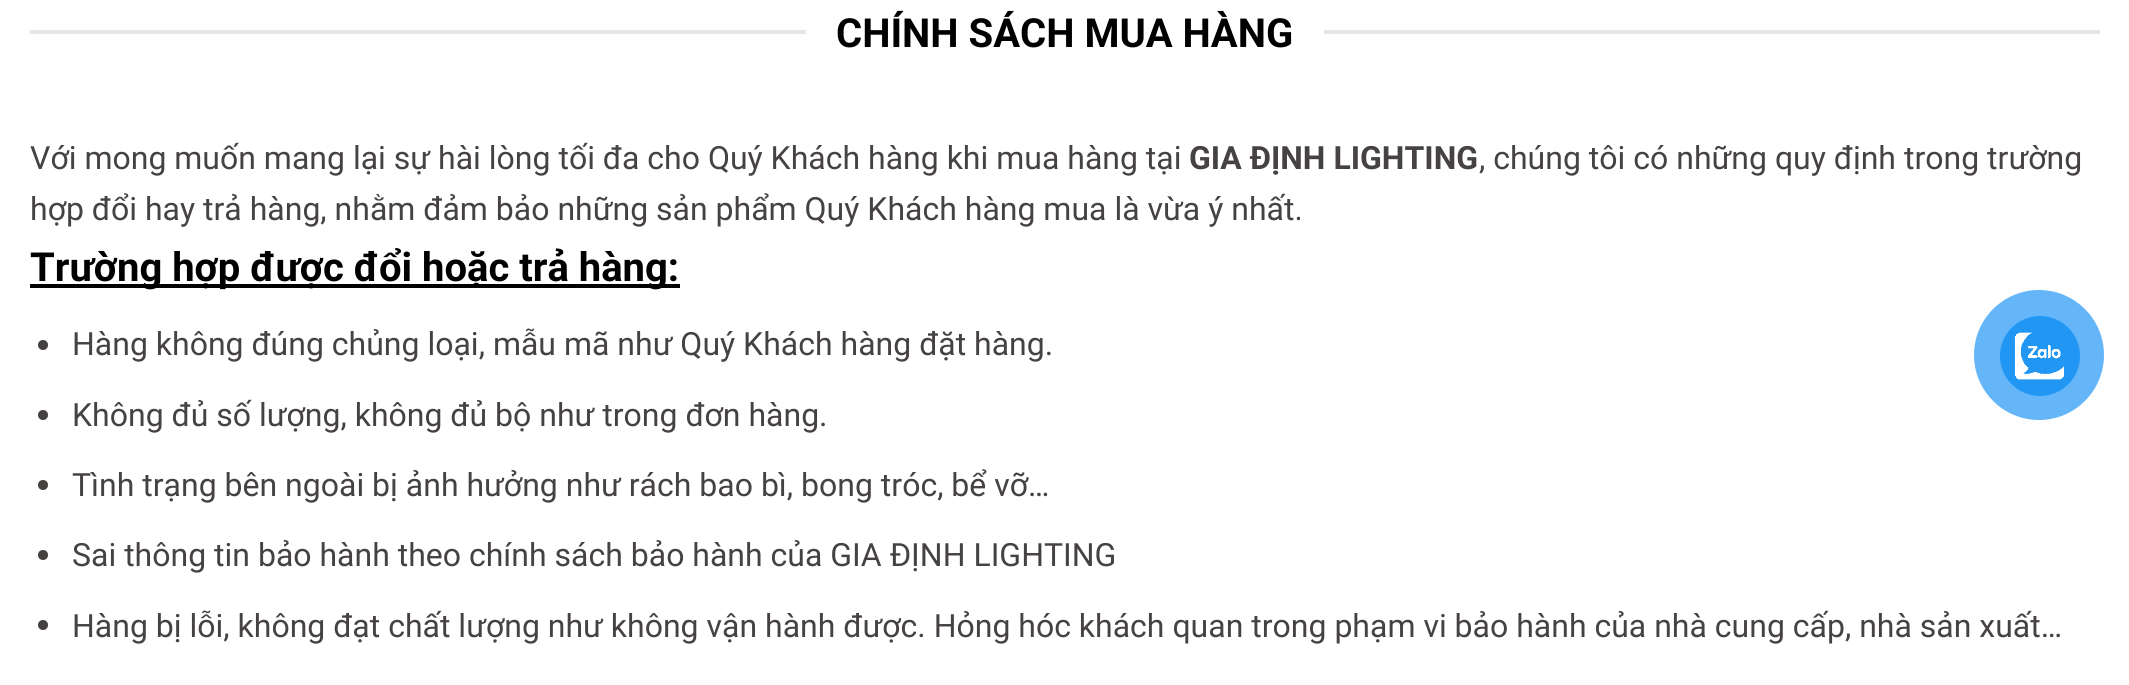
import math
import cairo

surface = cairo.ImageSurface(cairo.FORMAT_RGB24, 2129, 685)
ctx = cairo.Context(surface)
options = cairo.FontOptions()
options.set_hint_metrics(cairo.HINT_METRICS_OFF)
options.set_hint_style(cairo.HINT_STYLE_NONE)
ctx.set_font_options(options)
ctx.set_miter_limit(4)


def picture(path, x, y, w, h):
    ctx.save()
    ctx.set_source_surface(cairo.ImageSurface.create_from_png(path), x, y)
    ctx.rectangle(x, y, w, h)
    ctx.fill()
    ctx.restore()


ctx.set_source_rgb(1, 1, 1)
ctx.paint()
ctx.set_source_rgb(0.902, 0.902, 0.902)
ctx.rectangle(30, 30, 776, 4)
ctx.fill()
ctx.select_font_face("Roboto", cairo.FONT_SLANT_NORMAL, cairo.FONT_WEIGHT_BOLD)
ctx.set_font_size(40)
ctx.set_source_rgb(0, 0, 0)
ctx.move_to(836, 47)
ctx.show_text("CHÍNH SÁCH MUA HÀNG")
ctx.set_source_rgb(0.902, 0.902, 0.902)
ctx.rectangle(1324, 30, 776, 4)
ctx.fill()
ctx.select_font_face("Roboto")
ctx.set_font_size(32)
ctx.set_source_rgb(0.275, 0.259, 0.259)
ctx.move_to(30, 169)
ctx.show_text("Với mong muốn mang lại sự hài lòng tối đa cho Quý Khách hàng khi mua hàng tại")
ctx.select_font_face("Roboto", cairo.FONT_SLANT_NORMAL, cairo.FONT_WEIGHT_BOLD)
ctx.move_to(1189, 169)
ctx.show_text("GIA ĐỊNH LIGHTING")
ctx.select_font_face("Roboto")
ctx.move_to(1479, 169)
ctx.show_text(", chúng tôi có những quy định trong trường")
ctx.move_to(30, 220)
ctx.show_text("hợp đổi hay trả hàng, nhằm đảm bảo những sản phẩm Quý Khách hàng mua là vừa ý nhất.")
ctx.set_source_rgb(0, 0, 0)
ctx.rectangle(30, 284, 650, 4)
ctx.fill()
ctx.select_font_face("Roboto", cairo.FONT_SLANT_NORMAL, cairo.FONT_WEIGHT_BOLD)
ctx.set_font_size(40)
ctx.move_to(30, 281)
ctx.show_text("Trường hợp được đổi hoặc trả hàng:")
ctx.set_source_rgb(0.275, 0.259, 0.259)
ctx.new_path()
ctx.arc(43, 345, 5, 0, 2 * math.pi)
ctx.fill()
ctx.select_font_face("Roboto")
ctx.set_font_size(32)
ctx.move_to(72, 355)
ctx.show_text("Hàng không đúng chủng loại, mẫu mã như Quý Khách hàng đặt hàng.")
ctx.new_path()
ctx.arc(43, 415, 5, 0, 2 * math.pi)
ctx.fill()
ctx.move_to(72, 426)
ctx.show_text("Không đủ số lượng, không đủ bộ như trong đơn hàng.")
ctx.new_path()
ctx.arc(43, 485, 5, 0, 2 * math.pi)
ctx.fill()
ctx.move_to(72, 496)
ctx.show_text("Tình trạng bên ngoài bị ảnh hưởng như rách bao bì, bong tróc, bể vỡ…")
ctx.new_path()
ctx.arc(43, 555, 5, 0, 2 * math.pi)
ctx.fill()
ctx.move_to(72, 566)
ctx.show_text("Sai thông tin bảo hành theo chính sách bảo hành của GIA ĐỊNH LIGHTING")
ctx.new_path()
ctx.arc(43, 625, 5, 0, 2 * math.pi)
ctx.fill()
ctx.move_to(72, 637)
ctx.show_text("Hàng bị lỗi, không đạt chất lượng như không vận hành được. Hỏng hóc khách quan trong phạm vi bảo hành của nhà cung cấp, nhà sản xuất…")
ctx.set_source_rgb(0.392, 0.714, 0.969)
ctx.new_path()
ctx.arc(2039, 355, 65, 0, 2 * math.pi)
ctx.fill()
ctx.set_source_rgb(0.129, 0.588, 0.953)
ctx.arc(2040, 356, 40, 0, 2 * math.pi)
ctx.fill()
picture("img1.png", 2014, 332, 50, 48)
surface.write_to_png("page.png")
